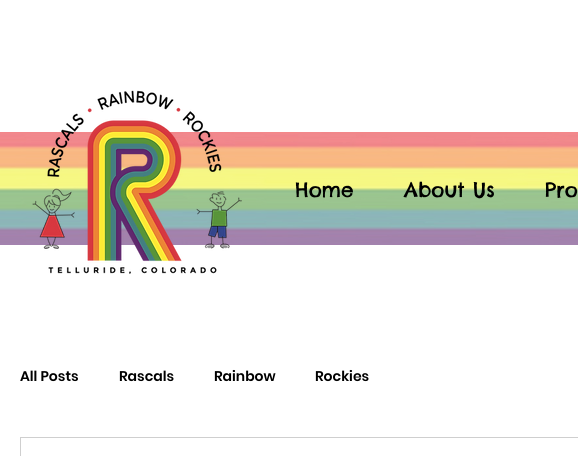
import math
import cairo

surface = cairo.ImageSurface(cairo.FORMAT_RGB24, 578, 456)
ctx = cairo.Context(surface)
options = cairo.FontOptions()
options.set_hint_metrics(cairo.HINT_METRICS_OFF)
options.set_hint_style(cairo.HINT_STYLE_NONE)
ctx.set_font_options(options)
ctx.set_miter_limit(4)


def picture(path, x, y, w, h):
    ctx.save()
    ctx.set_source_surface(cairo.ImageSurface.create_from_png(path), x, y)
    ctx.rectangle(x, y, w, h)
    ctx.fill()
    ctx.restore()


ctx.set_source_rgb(1, 1, 1)
ctx.paint()
picture("img2.png", 0, 132, 578, 113)
picture("img1.png", 32, 90, 210, 184)
ctx.select_font_face("Chelsea Market")
ctx.set_font_size(20)
ctx.set_source_rgb(0, 0, 0)
ctx.move_to(295, 197)
ctx.show_text("Home")
ctx.move_to(404, 197)
ctx.show_text("About Us")
ctx.move_to(545, 197)
ctx.show_text("Pro")
ctx.select_font_face("Poppins SemiBold")
ctx.set_font_size(14)
ctx.move_to(20, 381)
ctx.show_text("All Posts")
ctx.move_to(119, 381)
ctx.show_text("Rascals")
ctx.move_to(214, 381)
ctx.show_text("Rainbow")
ctx.move_to(315, 381)
ctx.show_text("Rockies")
ctx.rectangle(20.5, 437.5, 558, 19)
ctx.set_source_rgb(0.812, 0.812, 0.812)
ctx.set_line_width(1)
ctx.stroke()
surface.write_to_png("page.png")
